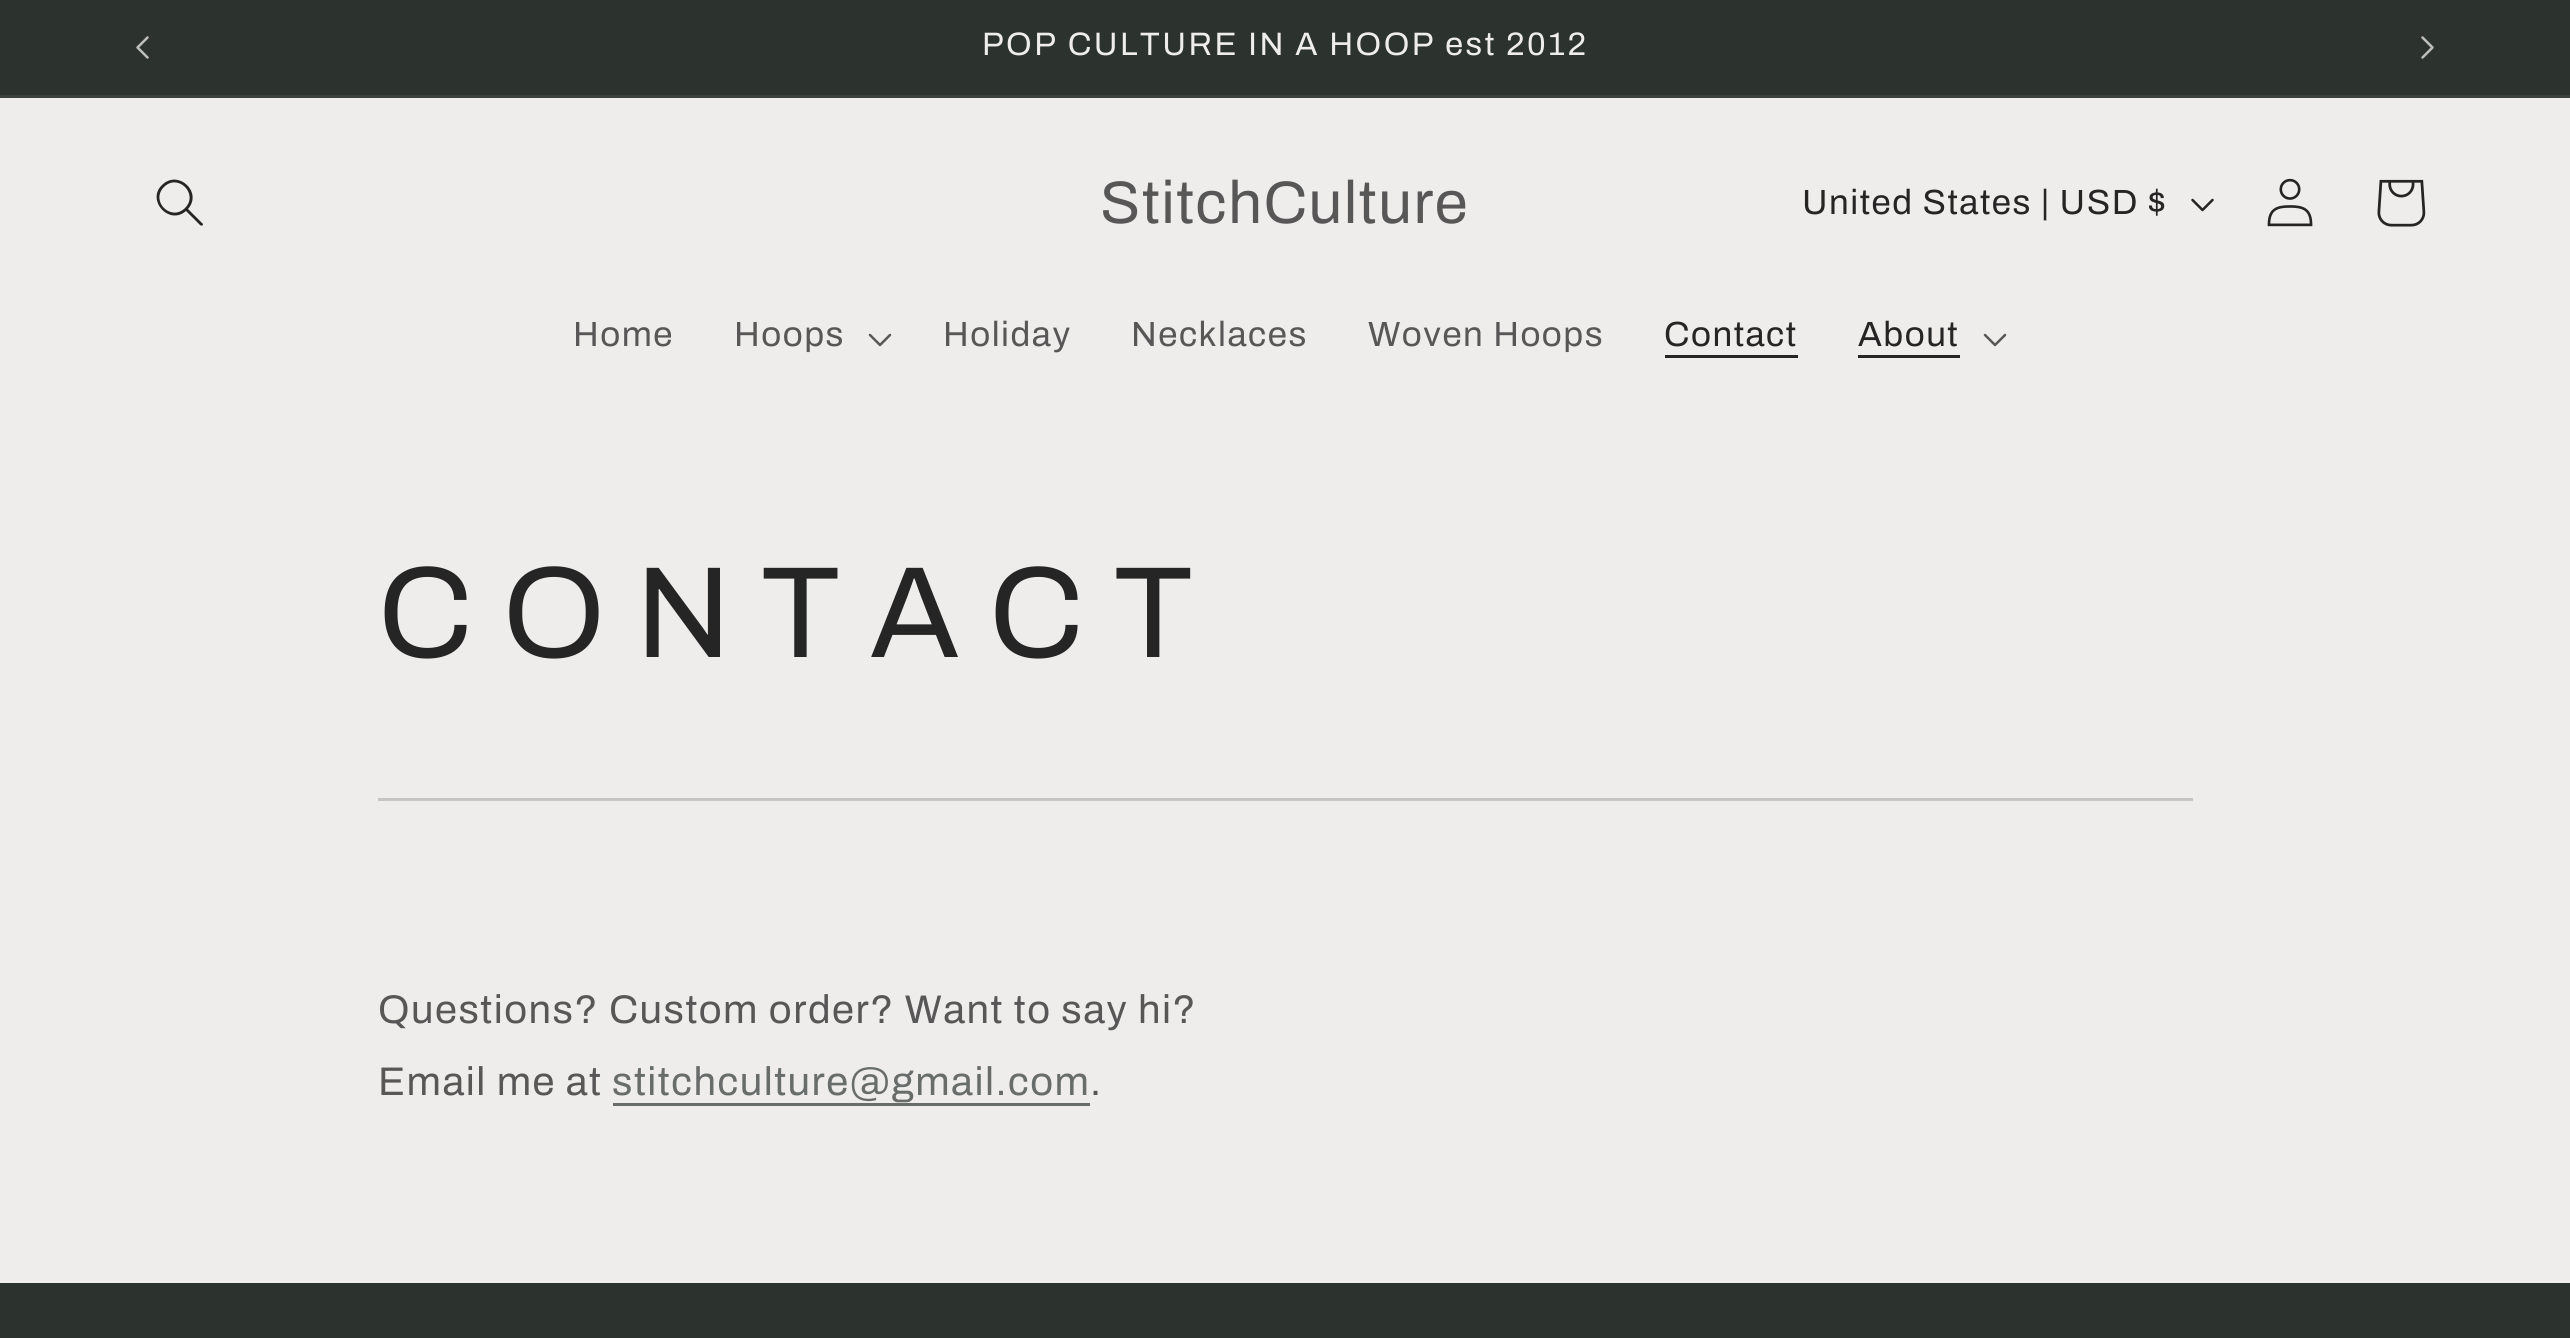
import math
import cairo

surface = cairo.ImageSurface(cairo.FORMAT_RGB24, 2570, 1338)
ctx = cairo.Context(surface)
options = cairo.FontOptions()
options.set_hint_metrics(cairo.HINT_METRICS_OFF)
options.set_hint_style(cairo.HINT_STYLE_NONE)
ctx.set_font_options(options)
ctx.set_miter_limit(4)


def spaced_text(x, y, s, letter, word):
    ctx.move_to(x, y)
    for ch in s:
        ctx.show_text(ch)
        ctx.rel_move_to(letter + word * (ch == ' '), 0)


def picture(path, x, y, w, h):
    ctx.save()
    ctx.set_source_surface(cairo.ImageSurface.create_from_png(path), x, y)
    ctx.rectangle(x, y, w, h)
    ctx.fill()
    ctx.restore()


ctx.set_source_rgb(0.937, 0.925, 0.925)
ctx.paint()
ctx.set_source_rgb(0.173, 0.2, 0.184)
ctx.rectangle(0, 0, 2570, 95)
ctx.fill()
ctx.set_source_rgb(0.235, 0.259, 0.243)
ctx.rectangle(0, 95, 2570, 3)
ctx.fill()
picture("img1.png", 136, 36, 13, 23)
ctx.select_font_face("Archivo")
ctx.set_font_size(32.5)
ctx.set_source_rgb(0.937, 0.925, 0.925)
spaced_text(982, 55, "POP CULTURE IN A HOOP est 2012", 2.5, 0)
picture("img2.png", 2421, 36, 13, 23)
ctx.set_source_rgb(0.145, 0.145, 0.145)
ctx.set_fill_rule(cairo.FILL_RULE_EVEN_ODD)
ctx.new_path()
ctx.move_to(185, 208)
ctx.curve_to(171, 222, 150, 201, 164, 187)
ctx.curve_to(178, 173, 199, 194, 185, 208)
ctx.move_to(186, 211)
ctx.curve_to(169, 226, 146, 200, 162, 185)
ctx.curve_to(178, 169, 203, 192, 188, 209)
ctx.line_to(203, 224)
ctx.curve_to(203, 226, 201, 226, 200, 225)
ctx.close_path()
ctx.fill()
ctx.set_font_size(60)
ctx.set_source_rgb(0.345, 0.341, 0.341)
spaced_text(1100, 223, "StitchCulture", 1.5, 0)
ctx.set_font_size(35)
ctx.set_source_rgb(0.145, 0.145, 0.145)
spaced_text(1802, 214, "United States | USD $", 1.5, 0)
picture("img3.png", 2191, 198, 23, 14)
picture("img4.png", 2267, 178, 46, 49)
picture("img5.png", 2377, 179, 49, 48)
ctx.set_source_rgb(0.345, 0.341, 0.341)
spaced_text(573, 346, "Home", 1.5, 0)
spaced_text(734, 346, "Hoops", 1.5, 0)
picture("img6.png", 868, 333, 24, 14)
spaced_text(943, 346, "Holiday", 1.5, 0)
spaced_text(1131, 346, "Necklaces", 1.5, 0)
spaced_text(1368, 346, "Woven Hoops", 1.5, 0)
ctx.set_source_rgb(0.145, 0.145, 0.145)
spaced_text(1664, 346, "Contact", 1.5, 0)
ctx.rectangle(1665, 355, 133, 3)
ctx.fill()
spaced_text(1858, 346, "About", 1.5, 0)
ctx.rectangle(1858, 355, 102, 3)
ctx.fill()
picture("img6.png", 1983, 333, 24, 14)
ctx.set_font_size(130)
spaced_text(378, 657, "C O N T A C T", 1.5, 0)
ctx.set_source_rgb(0.78, 0.769, 0.769)
ctx.rectangle(378, 798, 1815, 3)
ctx.fill()
ctx.set_font_size(40)
ctx.set_source_rgb(0.345, 0.341, 0.341)
spaced_text(378, 1023, "Questions? Custom order? Want to say hi?", 1.5, 0)
spaced_text(378, 1095, "Email me at", 1.5, 0)
ctx.set_source_rgb(0.408, 0.427, 0.424)
spaced_text(612, 1095, "stitchculture@gmail.com", 1.5, 0)
ctx.rectangle(613, 1103, 477, 3)
ctx.fill()
ctx.set_source_rgb(0.345, 0.341, 0.341)
spaced_text(1090, 1095, ".", 1.5, 0)
ctx.set_source_rgb(0.173, 0.2, 0.184)
ctx.rectangle(0, 1283, 2570, 55)
ctx.fill()
surface.write_to_png("page.png")
